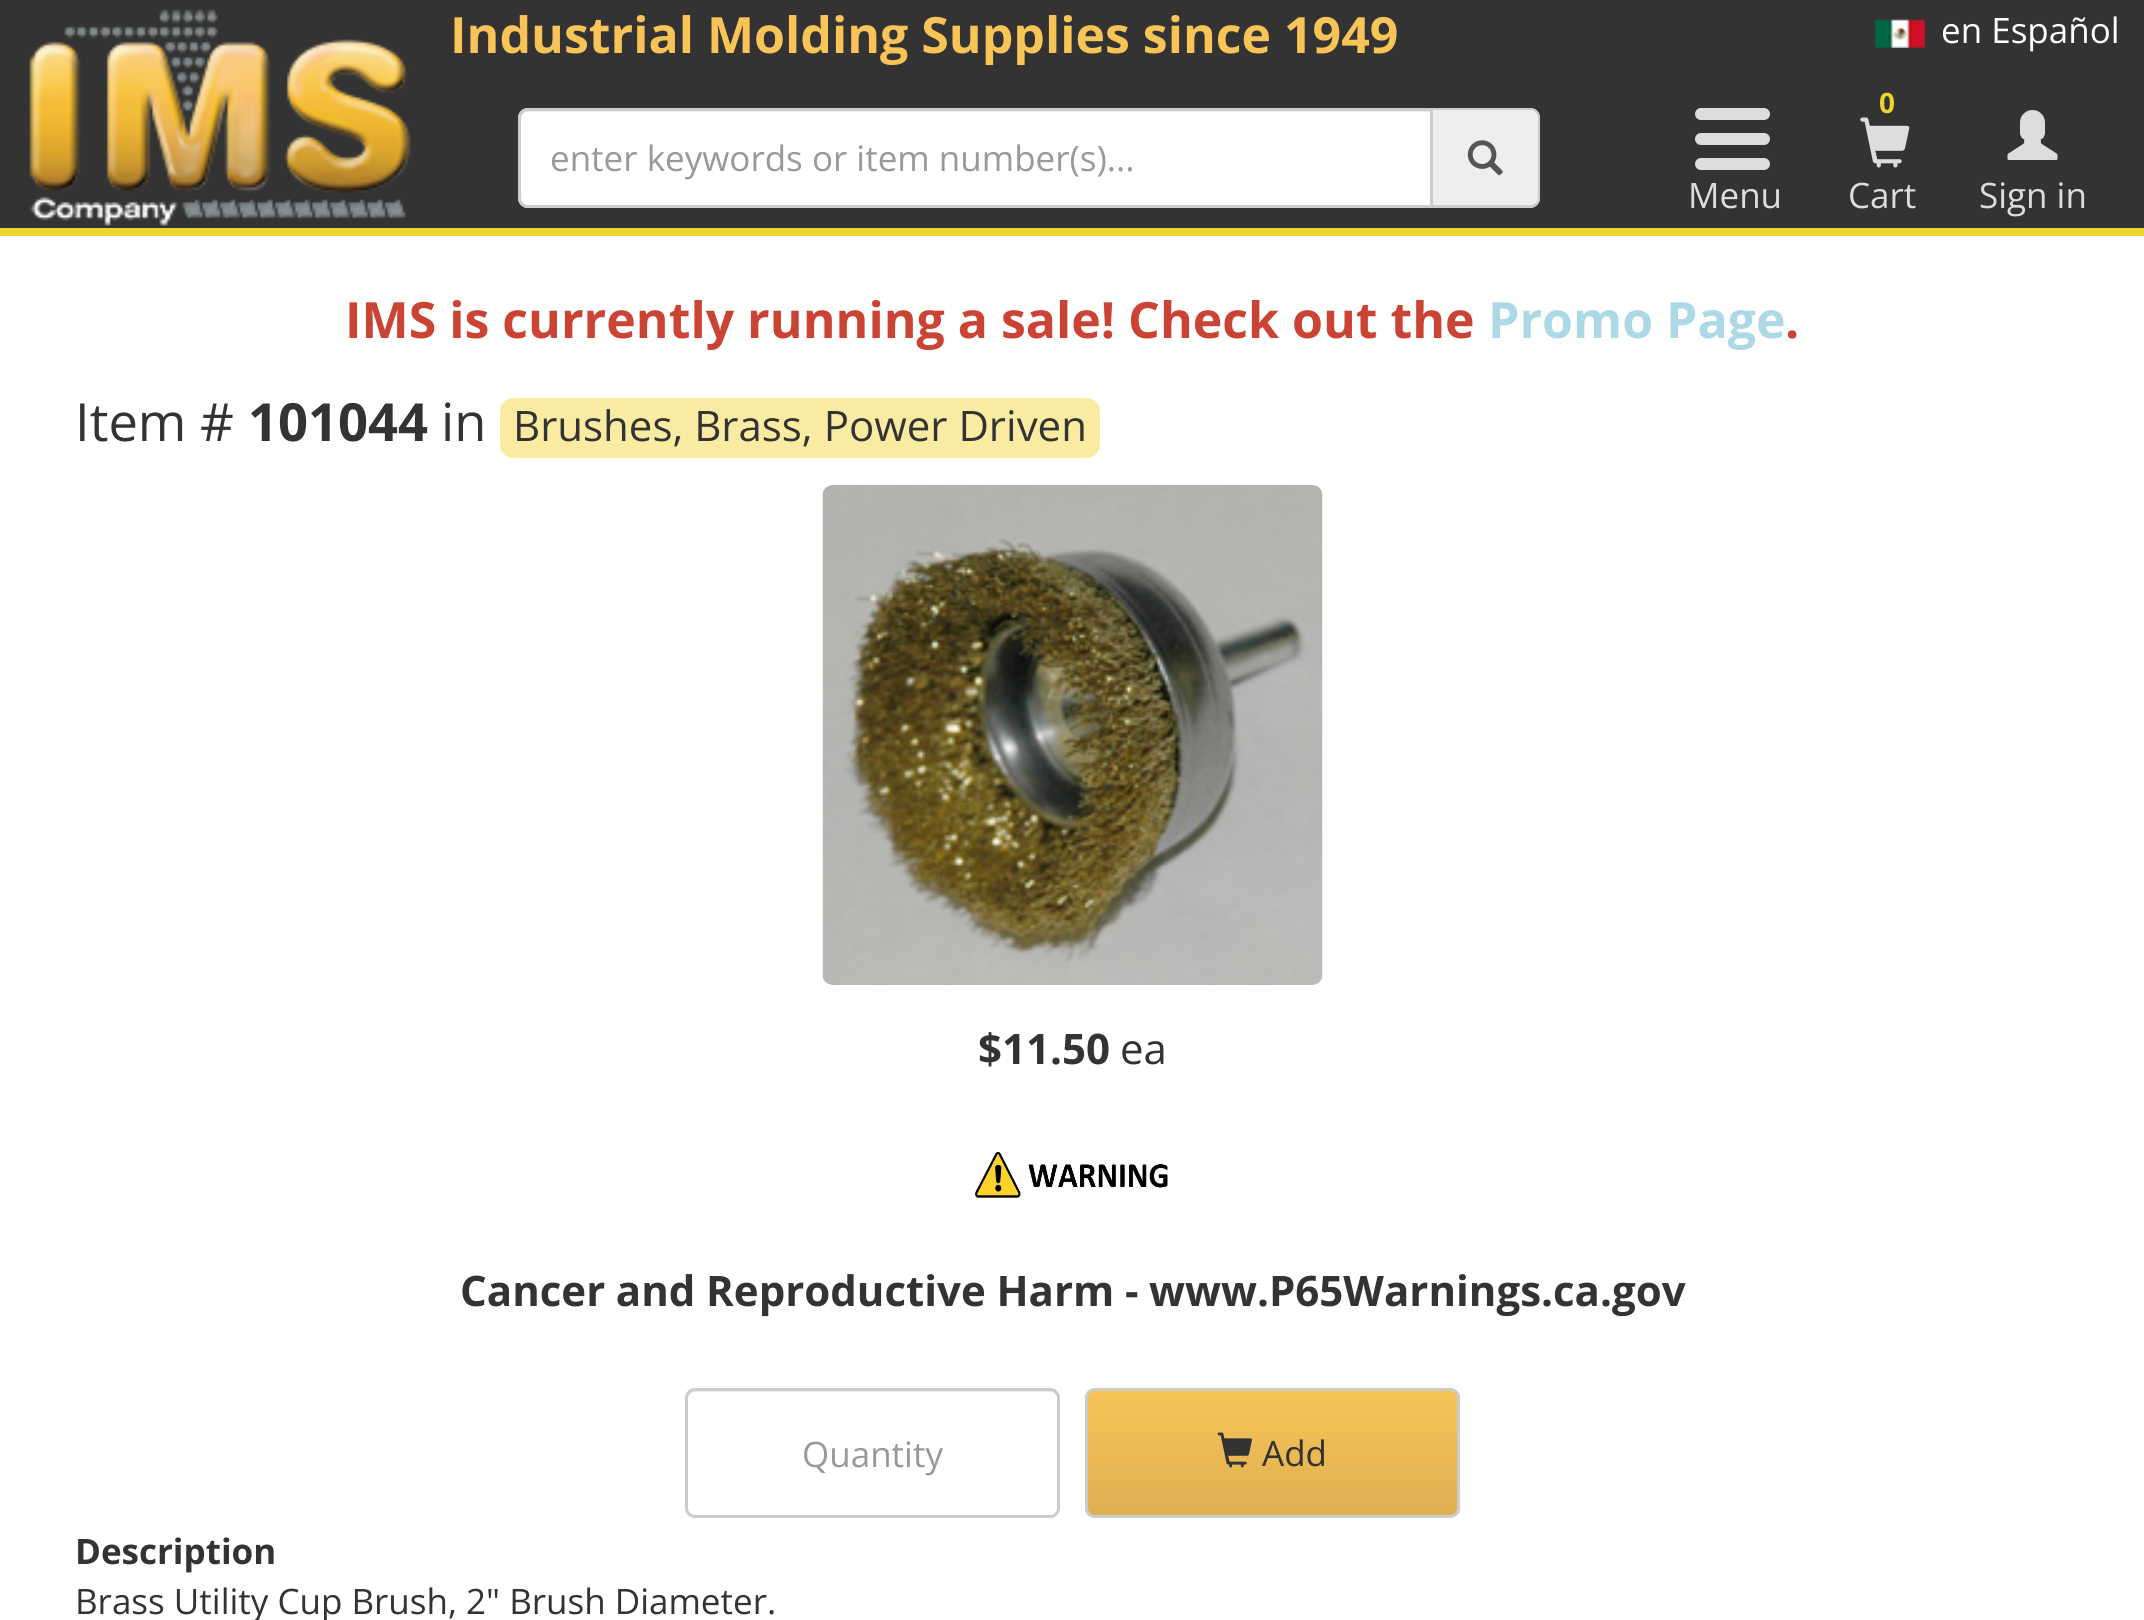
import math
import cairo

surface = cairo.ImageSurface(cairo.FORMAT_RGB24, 2144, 1620)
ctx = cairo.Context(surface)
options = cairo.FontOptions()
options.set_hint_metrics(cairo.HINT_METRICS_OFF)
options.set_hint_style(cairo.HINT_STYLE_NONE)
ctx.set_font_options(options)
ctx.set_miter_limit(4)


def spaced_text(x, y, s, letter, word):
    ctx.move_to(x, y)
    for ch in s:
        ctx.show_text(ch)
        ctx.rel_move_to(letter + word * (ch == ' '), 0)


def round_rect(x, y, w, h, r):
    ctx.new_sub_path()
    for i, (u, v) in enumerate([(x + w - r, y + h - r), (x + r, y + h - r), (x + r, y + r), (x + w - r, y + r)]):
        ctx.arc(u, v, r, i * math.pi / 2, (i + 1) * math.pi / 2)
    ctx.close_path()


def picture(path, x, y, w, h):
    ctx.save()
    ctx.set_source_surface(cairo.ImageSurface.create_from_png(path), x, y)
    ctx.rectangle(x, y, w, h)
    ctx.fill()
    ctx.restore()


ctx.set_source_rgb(1, 1, 1)
ctx.paint()
ctx.set_source_rgb(0.2, 0.2, 0.2)
ctx.rectangle(0, 0, 2144, 228)
ctx.fill()
ctx.set_source_rgb(0.937, 0.827, 0.196)
ctx.rectangle(0, 228, 2144, 8)
ctx.fill()
picture("img1.png", 29, 9, 382, 217)
ctx.select_font_face("Open Sans", cairo.FONT_SLANT_NORMAL, cairo.FONT_WEIGHT_BOLD)
ctx.set_font_size(50)
ctx.set_source_rgb(0.976, 0.769, 0.341)
ctx.move_to(450, 53)
ctx.show_text("Industrial Molding Supplies since 1949")
picture("img2.png", 1874, 18, 51, 30)
ctx.select_font_face("Open Sans")
ctx.set_font_size(35)
ctx.set_source_rgb(1, 1, 1)
ctx.move_to(1941, 43)
ctx.show_text("en Español")
ctx.set_source_rgb(0.933, 0.933, 0.933)
ctx.new_path()
ctx.move_to(1433, 108)
ctx.line_to(1530, 108)
ctx.curve_to(1535.5, 108, 1540, 112.5, 1540, 118)
ctx.line_to(1540, 198)
ctx.curve_to(1540, 203.5, 1535.5, 208, 1530, 208)
ctx.line_to(1433, 208)
ctx.close_path()
ctx.fill()
ctx.set_source_rgb(0.8, 0.8, 0.8)
ctx.set_fill_rule(cairo.FILL_RULE_EVEN_ODD)
ctx.new_path()
ctx.move_to(1432, 108)
ctx.line_to(1530, 108)
ctx.curve_to(1536, 108, 1540, 112, 1540, 118)
ctx.line_to(1540, 198)
ctx.curve_to(1540, 203, 1536, 208, 1530, 208)
ctx.line_to(1432, 208)
ctx.close_path()
ctx.move_to(1432, 110)
ctx.line_to(1530, 110)
ctx.curve_to(1534, 110, 1538, 113, 1538, 118)
ctx.line_to(1538, 198)
ctx.curve_to(1538, 202, 1534, 205, 1530, 205)
ctx.line_to(1432, 205)
ctx.close_path()
ctx.fill()
ctx.set_source_rgb(1, 1, 1)
ctx.new_path()
ctx.move_to(528, 108)
ctx.line_to(1433, 108)
ctx.line_to(1433, 208)
ctx.line_to(528, 208)
ctx.curve_to(522.5, 208, 518, 203.5, 518, 198)
ctx.line_to(518, 118)
ctx.curve_to(518, 112.5, 522.5, 108, 528, 108)
ctx.close_path()
ctx.fill()
ctx.set_source_rgb(0.925, 0.925, 0.925)
ctx.set_fill_rule(cairo.FILL_RULE_WINDING)
ctx.new_path()
ctx.move_to(528, 112)
ctx.line_to(1430, 112)
ctx.line_to(1430, 110)
ctx.line_to(528, 110)
ctx.curve_to(524, 110, 520, 114, 520, 118)
ctx.line_to(520, 120)
ctx.curve_to(520, 116, 523, 112, 528, 112)
ctx.close_path()
ctx.fill()
ctx.new_path()
ctx.move_to(528, 109.5)
ctx.line_to(1431.5, 109.5)
ctx.line_to(1431.5, 206.5)
ctx.line_to(528, 206.5)
ctx.curve_to(523.5, 206.5, 519.5, 202.5, 519.5, 198)
ctx.line_to(519.5, 118)
ctx.curve_to(519.5, 113.5, 523.5, 109.5, 528, 109.5)
ctx.close_path()
ctx.set_source_rgb(0.8, 0.8, 0.8)
ctx.set_line_width(3)
ctx.stroke()
ctx.set_source_rgb(0.6, 0.6, 0.6)
ctx.move_to(550, 171)
ctx.show_text("enter keywords or item number(s)...")
picture("img3.png", 1467, 140, 36, 36)
ctx.set_source_rgb(0.867, 0.867, 0.867)
round_rect(1695, 108, 75, 12, 6)
ctx.fill()
round_rect(1695, 133, 75, 12, 6)
ctx.fill()
round_rect(1695, 158, 75, 12, 6)
ctx.fill()
ctx.move_to(1688, 208)
ctx.show_text("Menu")
ctx.select_font_face("Open Sans", cairo.FONT_SLANT_NORMAL, cairo.FONT_WEIGHT_BOLD)
ctx.set_font_size(28)
ctx.set_source_rgb(0.937, 0.827, 0.196)
ctx.move_to(1879, 113)
ctx.show_text("0")
picture("img4.png", 1860, 117, 50, 51)
ctx.select_font_face("Open Sans")
ctx.set_font_size(35)
ctx.set_source_rgb(0.867, 0.867, 0.867)
ctx.move_to(1848, 208)
ctx.show_text("Cart")
picture("img5.png", 2007, 110, 51, 50)
ctx.move_to(1979, 208)
ctx.show_text("Sign in")
ctx.select_font_face("Open Sans", cairo.FONT_SLANT_NORMAL, cairo.FONT_WEIGHT_BOLD)
ctx.set_font_size(50)
ctx.set_source_rgb(0.796, 0.263, 0.208)
ctx.move_to(345, 338)
ctx.show_text("IMS is currently running a sale! Check out the")
ctx.set_source_rgb(0.678, 0.847, 0.902)
ctx.move_to(1488, 338)
ctx.show_text("Promo Page")
ctx.set_source_rgb(0.796, 0.263, 0.208)
ctx.move_to(1785, 338)
ctx.show_text(".")
ctx.select_font_face("Open Sans")
ctx.set_font_size(52.5)
ctx.set_source_rgb(0.2, 0.2, 0.2)
ctx.move_to(75, 441)
ctx.show_text("Item #")
ctx.select_font_face("Open Sans", cairo.FONT_SLANT_NORMAL, cairo.FONT_WEIGHT_BOLD)
ctx.move_to(248, 441)
ctx.show_text("101044")
ctx.select_font_face("Open Sans")
ctx.move_to(441, 441)
ctx.show_text("in")
ctx.set_source_rgb(0.973, 0.922, 0.635)
round_rect(500, 398, 600, 60, 13)
ctx.fill()
ctx.set_font_size(42)
ctx.set_source_rgb(0.2, 0.2, 0.2)
ctx.move_to(513, 441)
ctx.show_text("Brushes, Brass, Power Driven")
picture("img6.png", 822, 485, 501, 500)
ctx.select_font_face("Open Sans", cairo.FONT_SLANT_NORMAL, cairo.FONT_WEIGHT_BOLD)
ctx.move_to(978, 1064)
ctx.show_text("$11.50")
ctx.select_font_face("Open Sans")
ctx.move_to(1120, 1064)
ctx.show_text("ea")
picture("img7.png", 975, 1151, 194, 47)
ctx.select_font_face("Open Sans", cairo.FONT_SLANT_NORMAL, cairo.FONT_WEIGHT_BOLD)
spaced_text(460, 1306, "Cancer and Reproductive Harm - www.P65Warnings.ca.gov", 0, -0.25)
ctx.set_source_rgb(0.925, 0.925, 0.925)
ctx.new_path()
ctx.move_to(695, 1392)
ctx.line_to(1050, 1392)
ctx.curve_to(1054, 1392, 1058, 1396, 1058, 1400)
ctx.curve_to(1058, 1395, 1056, 1390, 1050, 1390)
ctx.line_to(694, 1390)
ctx.curve_to(689, 1391, 688, 1396, 688, 1400)
ctx.curve_to(688, 1396, 691, 1392, 695, 1392)
ctx.close_path()
ctx.fill()
round_rect(686.5, 1389.5, 372, 127, 8.5)
ctx.set_source_rgb(0.8, 0.8, 0.8)
ctx.stroke()
ctx.select_font_face("Open Sans")
ctx.set_font_size(35)
ctx.set_source_rgb(0.6, 0.6, 0.6)
ctx.move_to(802, 1467)
ctx.show_text("Quantity")
ctx.save()
round_rect(1085, 1388, 375, 130, 10)
ctx.clip()
gradient = cairo.LinearGradient(1088, 1390, 1088, 1515)
gradient.add_color_stop_rgba(0, 0.976, 0.769, 0.341, 1)
gradient.add_color_stop_rgba(1, 0.871, 0.69, 0.322, 1)
ctx.set_source(gradient)
ctx.rectangle(1085, 1390, 375, 125)
ctx.fill()
ctx.restore()
round_rect(1086.5, 1389.5, 372, 127, 8.5)
ctx.set_source_rgb(0.8, 0.8, 0.8)
ctx.stroke()
picture("img8.png", 1217, 1432, 35, 36)
ctx.set_source_rgb(0.2, 0.2, 0.2)
ctx.move_to(1262, 1466)
ctx.show_text("Add")
ctx.select_font_face("Open Sans", cairo.FONT_SLANT_NORMAL, cairo.FONT_WEIGHT_BOLD)
ctx.move_to(75, 1564)
ctx.show_text("Description")
ctx.select_font_face("Open Sans")
ctx.move_to(75, 1614)
ctx.show_text("Brass Utility Cup Brush, 2\" Brush Diameter.")
surface.write_to_png("page.png")
